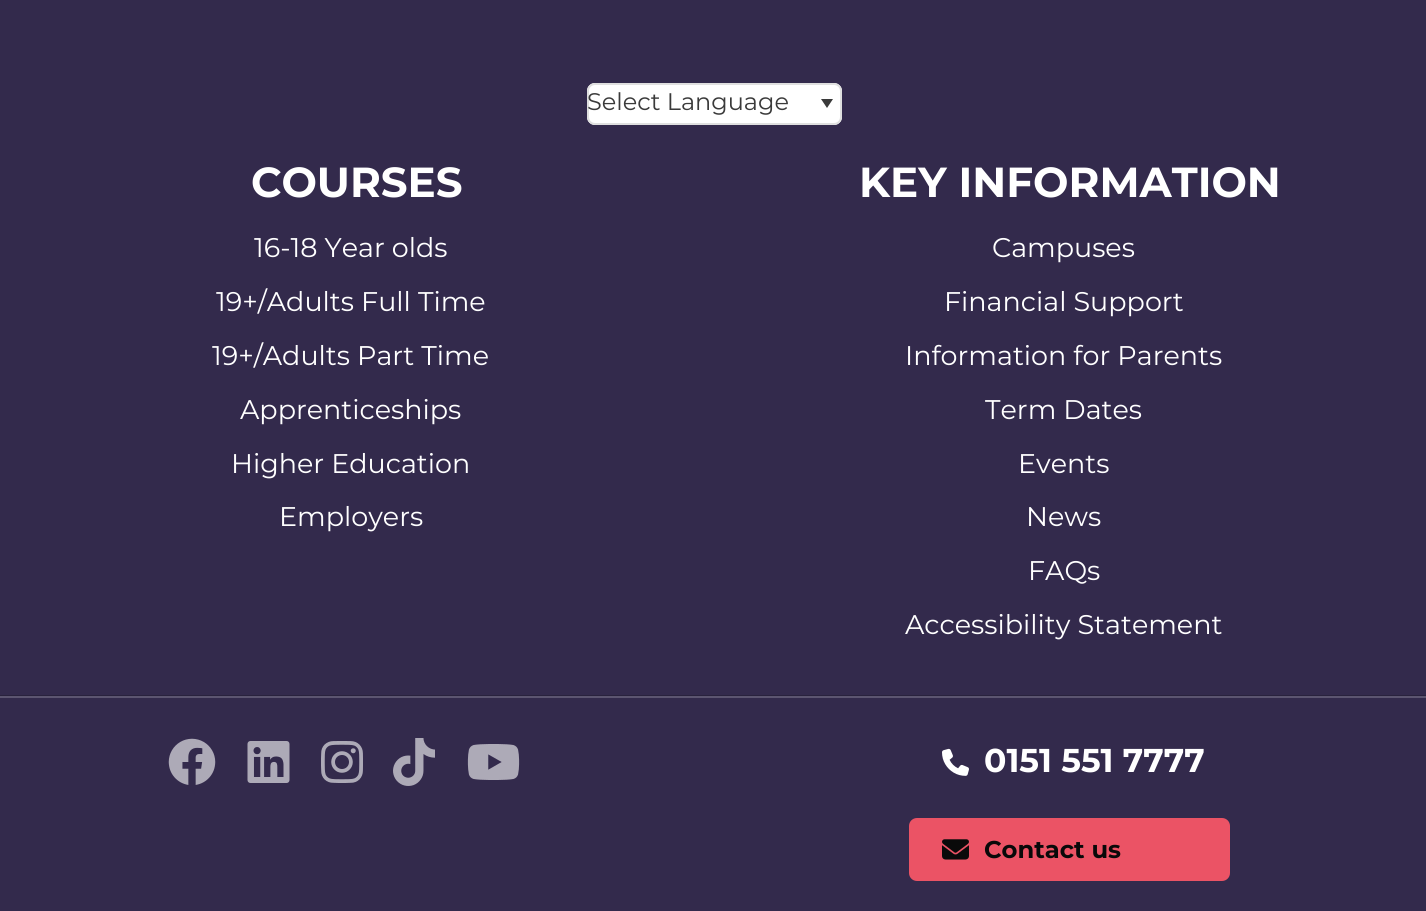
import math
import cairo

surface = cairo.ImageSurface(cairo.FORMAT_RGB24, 1426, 911)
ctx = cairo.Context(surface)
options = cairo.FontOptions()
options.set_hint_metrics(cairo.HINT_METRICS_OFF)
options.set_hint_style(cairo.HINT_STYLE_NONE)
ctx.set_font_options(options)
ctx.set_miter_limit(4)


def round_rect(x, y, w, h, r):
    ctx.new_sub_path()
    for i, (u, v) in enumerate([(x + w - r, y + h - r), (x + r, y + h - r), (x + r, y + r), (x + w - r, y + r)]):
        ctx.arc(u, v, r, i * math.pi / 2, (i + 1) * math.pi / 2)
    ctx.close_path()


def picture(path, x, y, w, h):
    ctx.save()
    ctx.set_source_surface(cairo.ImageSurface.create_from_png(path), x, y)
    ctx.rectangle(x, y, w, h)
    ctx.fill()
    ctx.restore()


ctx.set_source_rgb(0.2, 0.165, 0.298)
ctx.paint()
ctx.set_source_rgb(1, 1, 1)
round_rect(587, 83, 255, 42, 8)
ctx.fill()
ctx.set_source_rgb(0.227, 0.227, 0.227)
ctx.new_path()
ctx.move_to(821, 99)
ctx.line_to(833, 99)
ctx.line_to(827, 108)
ctx.close_path()
ctx.fill()
round_rect(588, 84, 253, 40, 7)
ctx.set_source_rgb(0.875, 0.875, 0.875)
ctx.stroke()
ctx.select_font_face("Montserrat")
ctx.set_font_size(24)
ctx.set_source_rgb(0.227, 0.227, 0.227)
ctx.move_to(587, 110)
ctx.show_text("Select Language")
ctx.select_font_face("Montserrat", cairo.FONT_SLANT_NORMAL, cairo.FONT_WEIGHT_BOLD)
ctx.set_font_size(42)
ctx.set_source_rgb(1, 1, 1)
ctx.move_to(251, 197)
ctx.show_text("COURSES")
ctx.select_font_face("Montserrat")
ctx.set_font_size(27)
ctx.move_to(254, 257)
ctx.show_text("16-18 Year olds")
ctx.move_to(216, 311)
ctx.show_text("19+/Adults Full Time")
ctx.move_to(212, 365)
ctx.show_text("19+/Adults Part Time")
ctx.move_to(240, 419)
ctx.show_text("Apprenticeships")
ctx.move_to(231, 473)
ctx.show_text("Higher Education")
ctx.move_to(279, 526)
ctx.show_text("Employers")
ctx.select_font_face("Montserrat", cairo.FONT_SLANT_NORMAL, cairo.FONT_WEIGHT_BOLD)
ctx.set_font_size(42)
ctx.move_to(859, 197)
ctx.show_text("KEY INFORMATION")
ctx.select_font_face("Montserrat")
ctx.set_font_size(27)
ctx.move_to(992, 257)
ctx.show_text("Campuses")
ctx.move_to(944, 311)
ctx.show_text("Financial Support")
ctx.move_to(905, 365)
ctx.show_text("Information for Parents")
ctx.move_to(985, 419)
ctx.show_text("Term Dates")
ctx.move_to(1018, 473)
ctx.show_text("Events")
ctx.move_to(1026, 526)
ctx.show_text("News")
ctx.move_to(1028, 580)
ctx.show_text("FAQs")
ctx.move_to(905, 634)
ctx.show_text("Accessibility Statement")
ctx.set_source_rgb(0.161, 0.133, 0.239)
ctx.rectangle(0, 695, 1426, 1)
ctx.fill()
ctx.set_source_rgb(0.361, 0.333, 0.439)
ctx.rectangle(0, 696, 1426, 2)
ctx.fill()
picture("img1.png", 168, 738, 48, 47)
picture("img2.png", 247, 741, 43, 42)
picture("img3.png", 321, 741, 42, 42)
picture("img4.png", 393, 738, 42, 48)
picture("img5.png", 467, 744, 53, 36)
picture("img6.png", 942, 748, 27, 28)
ctx.select_font_face("Montserrat", cairo.FONT_SLANT_NORMAL, cairo.FONT_WEIGHT_BOLD)
ctx.set_font_size(33)
ctx.set_source_rgb(1, 1, 1)
ctx.move_to(984, 772)
ctx.show_text("0151 551 7777")
ctx.set_source_rgb(0.918, 0.325, 0.396)
round_rect(909, 818, 321, 63, 8)
ctx.fill()
picture("img7.png", 942, 839, 27, 21)
ctx.set_font_size(24.25)
ctx.set_source_rgb(0.039, 0.039, 0.039)
ctx.move_to(984, 858)
ctx.show_text("Contact us")
surface.write_to_png("page.png")
